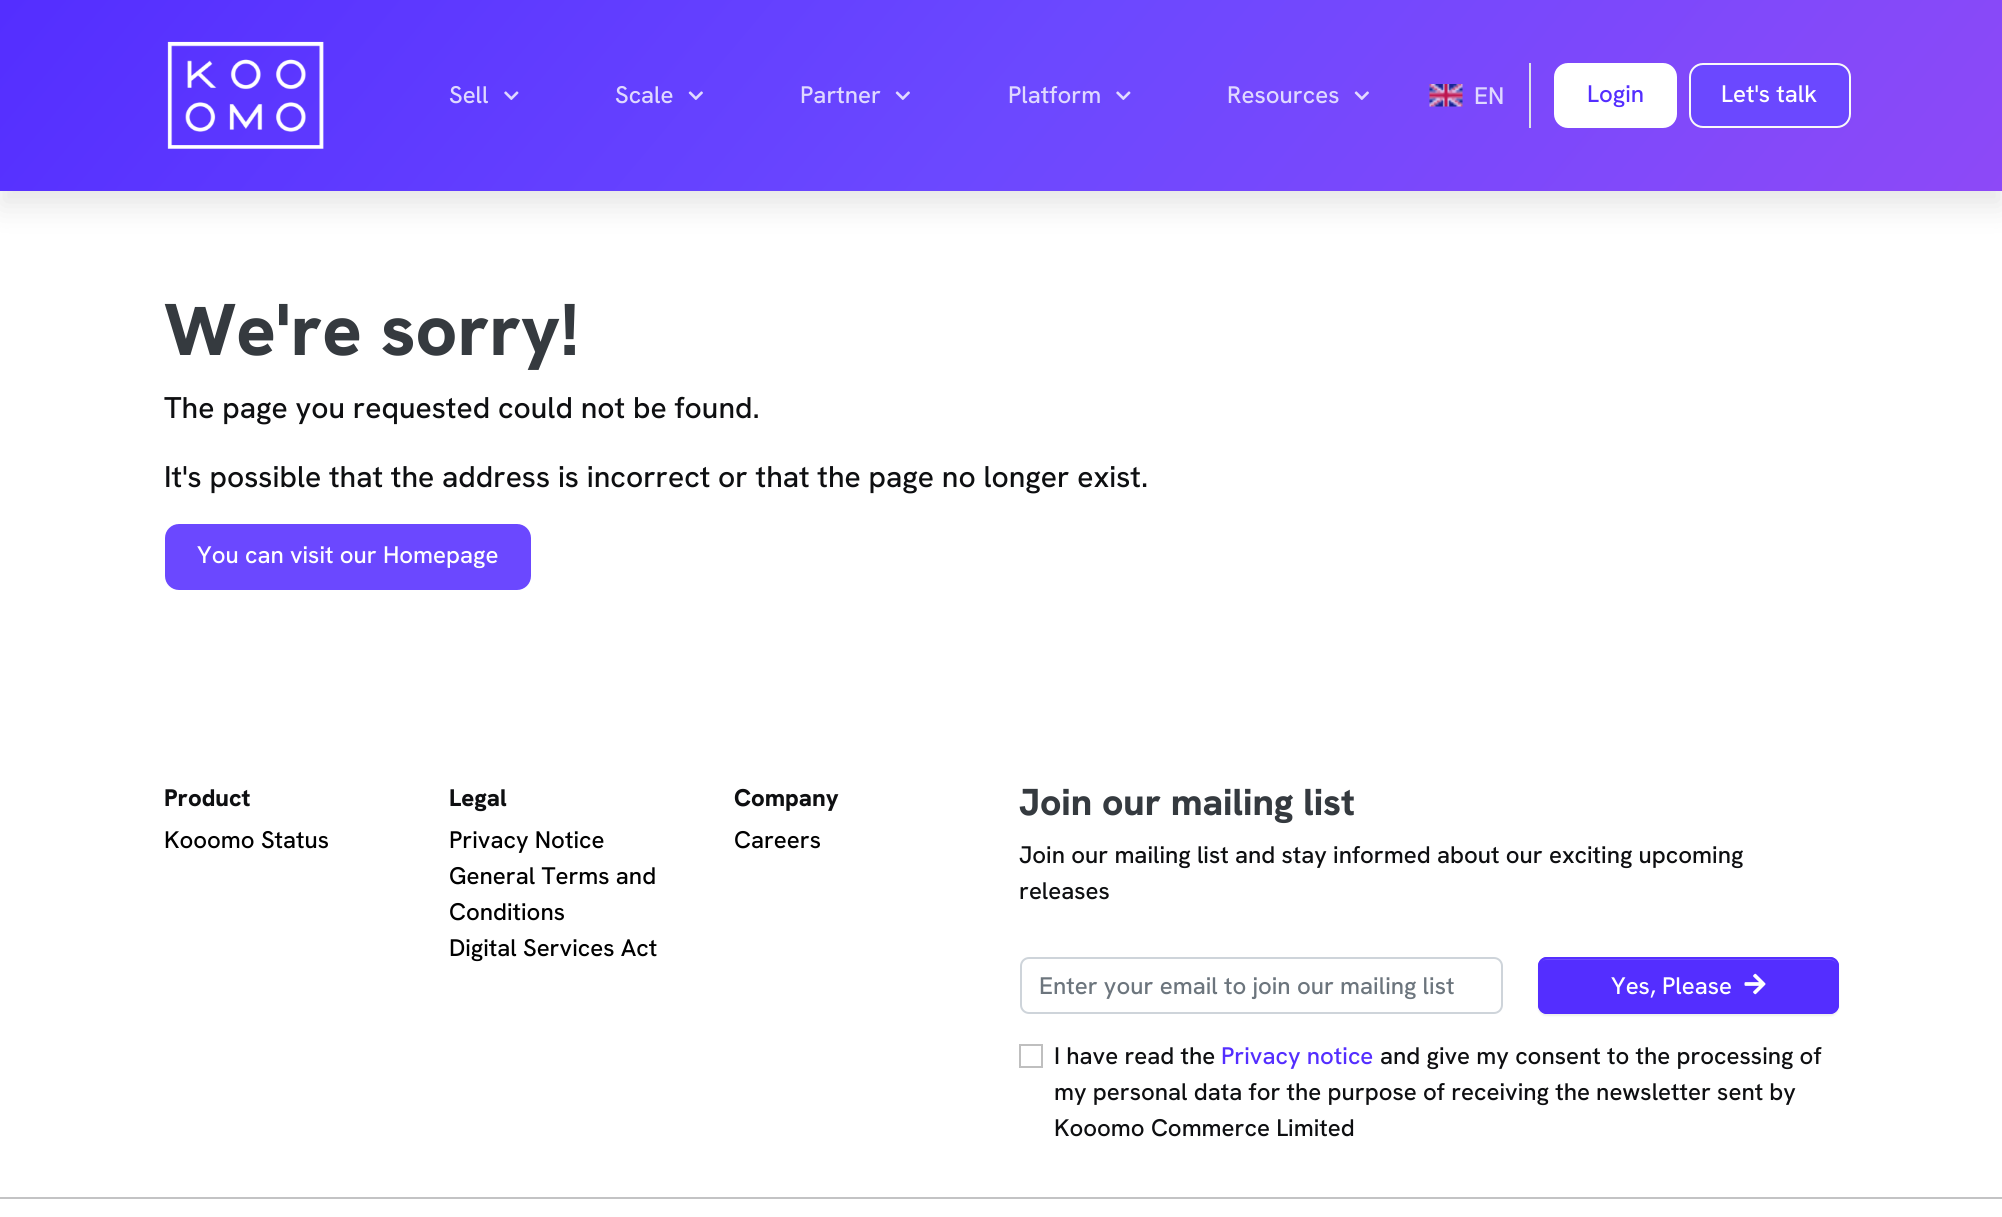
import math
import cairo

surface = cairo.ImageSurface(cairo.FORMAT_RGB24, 2002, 1217)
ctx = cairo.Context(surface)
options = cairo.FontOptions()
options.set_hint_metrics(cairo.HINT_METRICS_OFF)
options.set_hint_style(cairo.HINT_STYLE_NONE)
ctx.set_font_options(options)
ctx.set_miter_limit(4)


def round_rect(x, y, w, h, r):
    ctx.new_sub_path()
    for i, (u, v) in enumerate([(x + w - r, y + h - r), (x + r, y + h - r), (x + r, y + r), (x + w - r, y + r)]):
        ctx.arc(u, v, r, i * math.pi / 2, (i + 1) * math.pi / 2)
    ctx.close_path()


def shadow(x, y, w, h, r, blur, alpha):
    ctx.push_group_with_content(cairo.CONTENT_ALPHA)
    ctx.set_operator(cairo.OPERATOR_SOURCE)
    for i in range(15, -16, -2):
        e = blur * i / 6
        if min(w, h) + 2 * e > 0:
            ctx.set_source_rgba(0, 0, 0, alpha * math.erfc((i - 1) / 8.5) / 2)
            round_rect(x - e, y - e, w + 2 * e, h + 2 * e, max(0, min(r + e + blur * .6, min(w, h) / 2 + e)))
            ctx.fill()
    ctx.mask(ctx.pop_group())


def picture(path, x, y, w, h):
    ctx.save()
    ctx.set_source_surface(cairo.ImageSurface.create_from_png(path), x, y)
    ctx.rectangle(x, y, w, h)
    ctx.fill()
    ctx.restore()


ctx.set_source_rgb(1, 1, 1)
ctx.paint()
ctx.set_source_rgb(0, 0, 0)
shadow(0, 15, 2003, 191, 0, 15, 0.1)
gradient = cairo.LinearGradient(367, -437, 1636, 628)
gradient.add_color_stop_rgba(0, 0.329, 0.18, 1, 1)
gradient.add_color_stop_rgba(0.5, 0.42, 0.282, 1, 1)
gradient.add_color_stop_rgba(1, 0.553, 0.286, 0.969, 1)
ctx.set_source(gradient)
ctx.rectangle(0, 0, 2002, 191)
ctx.fill()
picture("img1.png", 167, 41, 157, 108)
ctx.select_font_face("Hanken Grotesk Medium")
ctx.set_font_size(24)
ctx.set_source_rgb(0.875, 0.847, 1)
ctx.move_to(449, 103)
ctx.show_text("Sell")
picture("img2.png", 504, 91, 15, 9)
ctx.move_to(615, 103)
ctx.show_text("Scale")
picture("img3.png", 688, 91, 15, 9)
ctx.move_to(800, 103)
ctx.show_text("Partner")
picture("img4.png", 895, 91, 15, 9)
ctx.move_to(1008, 103)
ctx.show_text("Platform")
picture("img5.png", 1116, 91, 15, 9)
ctx.move_to(1227, 103)
ctx.show_text("Resources")
picture("img6.png", 1354, 91, 15, 9)
ctx.set_source_rgb(0.871, 0.886, 0.902)
ctx.rectangle(1529, 63, 2, 65)
ctx.fill()
picture("img7.png", 1429, 84, 34, 23)
ctx.set_source_rgb(0.875, 0.847, 1)
ctx.move_to(1474, 104)
ctx.show_text("EN")
ctx.set_source_rgb(1, 1, 1)
round_rect(1555, 64, 121, 63, 13)
ctx.fill_preserve()
ctx.stroke()
ctx.set_source_rgb(0.329, 0.18, 1)
ctx.move_to(1587, 102)
ctx.show_text("Login")
ctx.set_source_rgb(0.42, 0.282, 1)
round_rect(1690, 64, 160, 63, 13)
ctx.fill_preserve()
ctx.set_source_rgb(0.976, 0.976, 0.976)
ctx.stroke()
ctx.set_source_rgb(1, 1, 1)
ctx.move_to(1721, 102)
ctx.show_text("Let's talk")
ctx.select_font_face("Hanken Grotesk ExtraBold")
ctx.set_font_size(73.25)
ctx.set_source_rgb(0.208, 0.227, 0.247)
ctx.move_to(164, 355)
ctx.show_text("We're sorry!")
ctx.select_font_face("Hanken Grotesk Medium")
ctx.set_font_size(30)
ctx.set_source_rgb(0.055, 0.059, 0.067)
ctx.move_to(164, 418)
ctx.show_text("The page you requested could not be found.")
ctx.move_to(164, 487)
ctx.show_text("It's possible that the address is incorrect or that the page no longer exist.")
ctx.set_source_rgb(0.42, 0.282, 1)
round_rect(166, 525, 364, 64, 13)
ctx.fill_preserve()
ctx.stroke()
ctx.set_font_size(24)
ctx.set_source_rgb(1, 1, 1)
ctx.move_to(197, 563)
ctx.show_text("You can visit our Homepage")
ctx.select_font_face("Hanken Grotesk ExtraBold")
ctx.set_source_rgb(0.055, 0.059, 0.067)
ctx.move_to(164, 806)
ctx.show_text("Product")
ctx.select_font_face("Hanken Grotesk Medium")
ctx.set_source_rgb(0, 0, 0)
ctx.move_to(164, 848)
ctx.show_text("Kooomo Status")
ctx.select_font_face("Hanken Grotesk ExtraBold")
ctx.set_source_rgb(0.055, 0.059, 0.067)
ctx.move_to(449, 806)
ctx.show_text("Legal")
ctx.select_font_face("Hanken Grotesk Medium")
ctx.set_source_rgb(0, 0, 0)
ctx.move_to(449, 848)
ctx.show_text("Privacy Notice")
ctx.move_to(449, 884)
ctx.show_text("General Terms and")
ctx.move_to(449, 920)
ctx.show_text("Conditions")
ctx.move_to(449, 956)
ctx.show_text("Digital Services Act")
ctx.select_font_face("Hanken Grotesk ExtraBold")
ctx.set_source_rgb(0.055, 0.059, 0.067)
ctx.move_to(734, 806)
ctx.show_text("Company")
ctx.select_font_face("Hanken Grotesk Medium")
ctx.set_source_rgb(0, 0, 0)
ctx.move_to(734, 848)
ctx.show_text("Careers")
ctx.select_font_face("Hanken Grotesk ExtraBold")
ctx.set_font_size(37.5)
ctx.set_source_rgb(0.208, 0.227, 0.247)
ctx.move_to(1019, 815)
ctx.show_text("Join our mailing list")
ctx.select_font_face("Hanken Grotesk Medium")
ctx.set_font_size(24)
ctx.set_source_rgb(0.055, 0.059, 0.067)
ctx.move_to(1019, 863)
ctx.show_text("Join our mailing list and stay informed about our exciting upcoming")
ctx.move_to(1019, 899)
ctx.show_text("releases")
round_rect(1021, 958, 481, 55, 8)
ctx.set_source_rgb(0.808, 0.831, 0.855)
ctx.stroke()
ctx.set_source_rgb(0.424, 0.459, 0.49)
ctx.move_to(1039, 994)
ctx.show_text("Enter your email to join our mailing list")
ctx.set_source_rgb(0, 0, 0)
shadow(1538, 959, 301, 57, 9, 1, 0.07)
ctx.set_source_rgb(0.329, 0.18, 1)
round_rect(1538, 957, 301, 57, 9)
ctx.fill()
ctx.set_source_rgb(0.431, 0.302, 1)
ctx.new_path()
ctx.move_to(1546, 960)
ctx.line_to(1830, 960)
ctx.curve_to(1834, 960, 1838, 963, 1838, 968)
ctx.line_to(1838, 967)
ctx.curve_to(1838, 963, 1834, 959, 1830, 959)
ctx.line_to(1547, 959)
ctx.curve_to(1543, 959, 1539, 963, 1539, 967)
ctx.line_to(1539, 968)
ctx.curve_to(1539, 963, 1542, 960, 1546, 960)
ctx.close_path()
ctx.fill()
round_rect(1539, 958, 299, 55, 8)
ctx.set_source_rgb(0.329, 0.18, 1)
ctx.stroke()
ctx.set_source_rgb(1, 1, 1)
ctx.move_to(1611, 994)
ctx.show_text("Yes, Please")
picture("img8.png", 1744, 973, 22, 22)
ctx.rectangle(1020, 1045, 22, 22)
ctx.set_source_rgb(0.749, 0.749, 0.749)
ctx.stroke()
ctx.set_source_rgb(0.055, 0.059, 0.067)
ctx.move_to(1054, 1064)
ctx.show_text("I have read the")
ctx.set_source_rgb(0.329, 0.18, 1)
ctx.move_to(1221, 1064)
ctx.show_text("Privacy notice")
ctx.set_source_rgb(0.055, 0.059, 0.067)
ctx.move_to(1380, 1064)
ctx.show_text("and give my consent to the processing of")
ctx.move_to(1054, 1100)
ctx.show_text("my personal data for the purpose of receiving the newsletter sent by")
ctx.move_to(1054, 1136)
ctx.show_text("Kooomo Commerce Limited")
ctx.set_source_rgb(0.765, 0.765, 0.769)
ctx.rectangle(0, 1197, 2002, 2)
ctx.fill()
surface.write_to_png("page.png")
